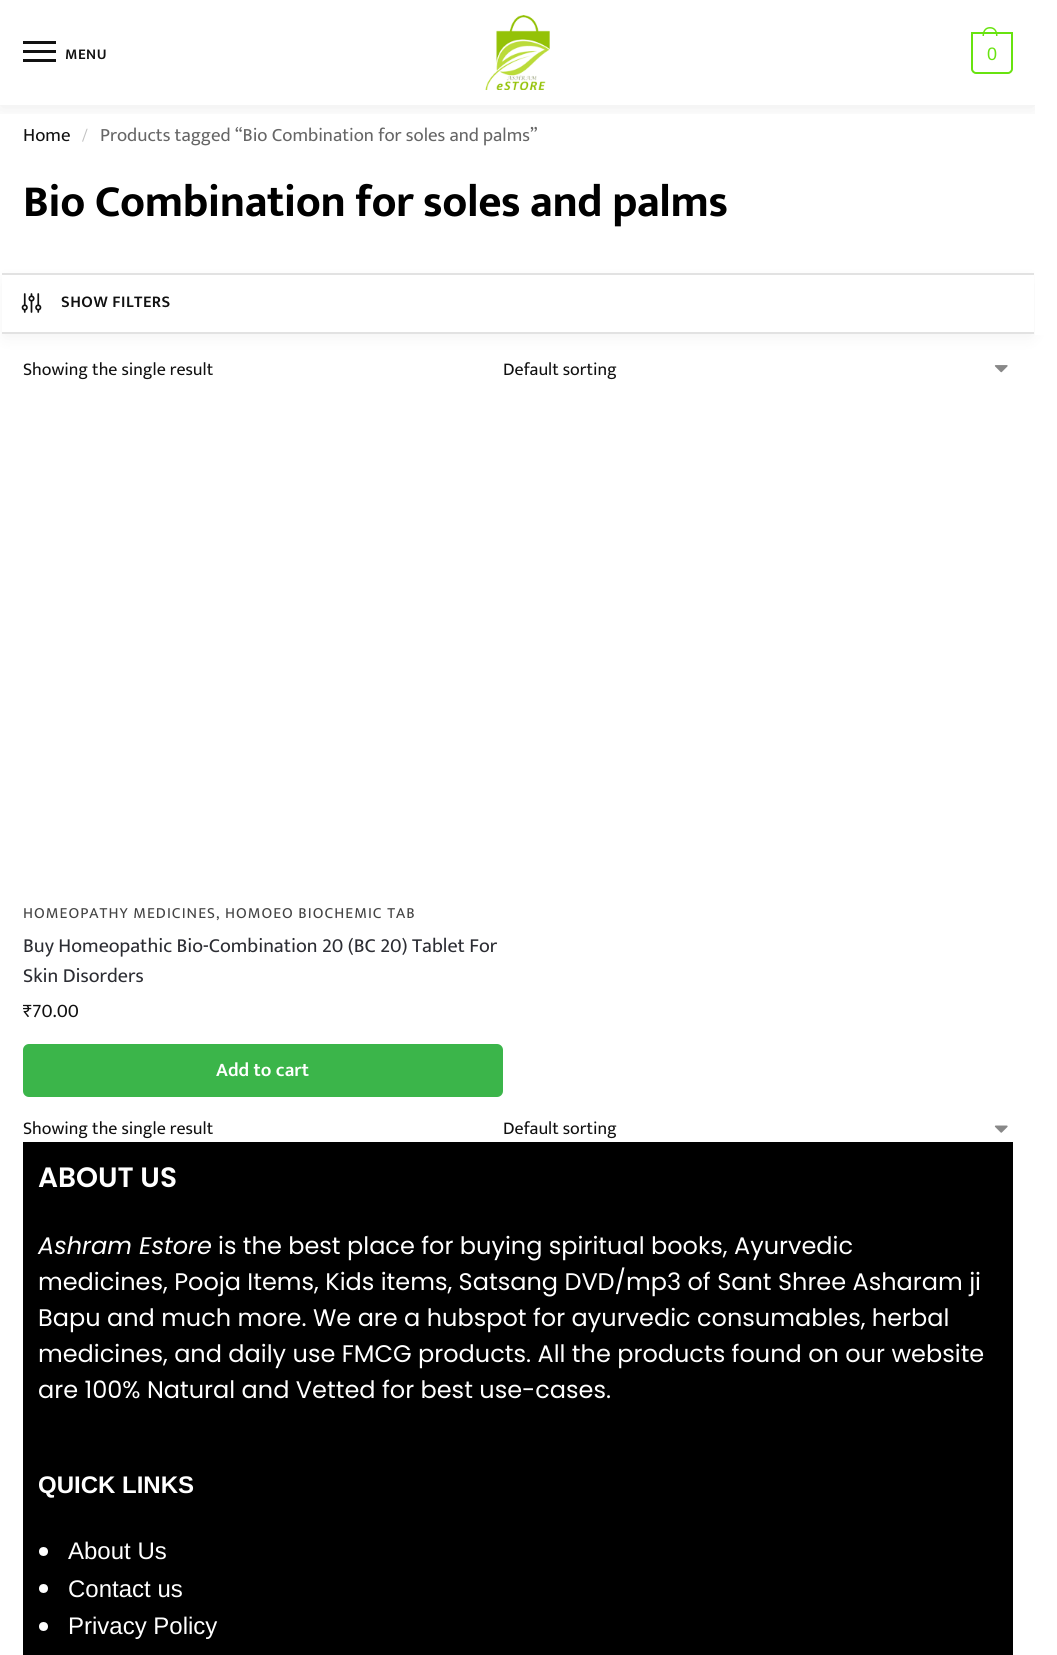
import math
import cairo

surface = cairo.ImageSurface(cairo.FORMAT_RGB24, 1057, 1655)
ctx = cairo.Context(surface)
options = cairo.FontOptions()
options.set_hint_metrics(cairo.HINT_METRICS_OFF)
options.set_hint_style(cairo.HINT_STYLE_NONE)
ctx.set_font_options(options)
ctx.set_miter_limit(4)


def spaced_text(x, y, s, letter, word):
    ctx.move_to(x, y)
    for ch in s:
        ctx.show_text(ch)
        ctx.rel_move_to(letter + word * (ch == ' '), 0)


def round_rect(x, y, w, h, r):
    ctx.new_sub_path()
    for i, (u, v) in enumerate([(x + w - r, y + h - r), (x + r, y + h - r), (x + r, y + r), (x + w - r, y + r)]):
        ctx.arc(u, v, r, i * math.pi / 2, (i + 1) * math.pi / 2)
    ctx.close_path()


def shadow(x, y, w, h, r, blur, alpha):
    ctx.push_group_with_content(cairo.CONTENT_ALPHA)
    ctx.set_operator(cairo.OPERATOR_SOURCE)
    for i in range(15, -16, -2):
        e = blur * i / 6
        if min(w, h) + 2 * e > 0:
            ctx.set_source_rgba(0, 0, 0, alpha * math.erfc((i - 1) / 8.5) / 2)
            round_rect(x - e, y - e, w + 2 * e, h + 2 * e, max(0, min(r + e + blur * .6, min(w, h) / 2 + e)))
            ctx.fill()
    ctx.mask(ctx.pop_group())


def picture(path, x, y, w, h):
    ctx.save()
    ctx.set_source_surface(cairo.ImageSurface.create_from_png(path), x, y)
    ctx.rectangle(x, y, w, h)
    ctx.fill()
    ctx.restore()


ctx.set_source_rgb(1, 1, 1)
ctx.paint()
ctx.save()
ctx.rectangle(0, 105, 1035, 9)
ctx.clip()
ctx.set_source_rgb(0, 0, 0)
shadow(0, 2, 1035, 105, 0, 11, 0.08)
ctx.restore()
ctx.set_source_rgb(0.067, 0.067, 0.067)
ctx.rectangle(23, 41, 33, 3)
ctx.fill()
ctx.rectangle(23, 50, 33, 3)
ctx.fill()
ctx.select_font_face("Mukta SemiBold")
ctx.set_font_size(15)
spaced_text(65, 59, "MENU", 0.5, 0)
ctx.rectangle(23, 59, 33, 3)
ctx.fill()
picture("img1.png", 485, 15, 65, 75)
ctx.new_path()
ctx.move_to(972, 33)
ctx.line_to(1012, 33)
ctx.line_to(1012, 69)
ctx.curve_to(1012, 71, 1010, 73, 1008, 73)
ctx.line_to(976, 73)
ctx.curve_to(974, 73, 972, 71, 972, 69)
ctx.close_path()
ctx.set_source_rgb(0.408, 0.89, 0.063)
ctx.stroke()
ctx.set_fill_rule(cairo.FILL_RULE_EVEN_ODD)
ctx.new_path()
ctx.move_to(990, 27)
ctx.curve_to(995.5, 27, 997.5, 31.5, 997.5, 36)
ctx.line_to(982.5, 36)
ctx.curve_to(982.5, 31.5, 984.5, 27, 990, 27)
ctx.close_path()
ctx.move_to(990, 28.5)
ctx.curve_to(994.5, 28.5, 996, 32, 996, 36)
ctx.line_to(984, 36)
ctx.curve_to(984, 32, 985.5, 28.5, 990, 28.5)
ctx.close_path()
ctx.fill()
ctx.select_font_face("Arimo")
ctx.set_font_size(18)
spaced_text(987, 60, "0", -1, 0)
ctx.set_source_rgb(0, 0, 0)
shadow(5, 282, 1026, 54, 0, 9, 0.06)
ctx.set_source_rgb(1, 1, 1)
ctx.rectangle(1035, 0, 13, 335)
ctx.fill()
ctx.select_font_face("Mukta")
ctx.set_font_size(18.9)
ctx.set_source_rgb(0.067, 0.067, 0.067)
ctx.move_to(23, 141)
ctx.show_text("Home")
ctx.set_font_size(15)
ctx.set_source_rgb(0.761, 0.761, 0.761)
ctx.move_to(82, 140)
ctx.show_text("/")
ctx.set_font_size(18.9)
ctx.set_source_rgb(0.4, 0.4, 0.4)
ctx.move_to(100, 141)
ctx.show_text("Products tagged “Bio Combination for soles and palms”")
ctx.select_font_face("Mukta", cairo.FONT_SLANT_NORMAL, cairo.FONT_WEIGHT_BOLD)
ctx.set_font_size(45)
ctx.set_source_rgb(0, 0, 0)
spaced_text(23, 216, "Bio Combination for soles and palms", -0.45, 0)
ctx.set_source_rgb(1, 1, 1)
ctx.rectangle(2, 275, 1032, 57)
ctx.fill()
ctx.set_source_rgb(0.886, 0.886, 0.886)
ctx.rectangle(2, 273, 1032, 2)
ctx.fill()
ctx.rectangle(2, 332, 1032, 2)
ctx.fill()
picture("img2.png", 21, 293, 21, 20)
ctx.select_font_face("Mukta SemiBold")
ctx.set_font_size(16.5)
ctx.set_source_rgb(0.067, 0.067, 0.067)
spaced_text(61, 307, "SHOW FILTERS", 0.5, 0)
ctx.select_font_face("Mukta")
ctx.set_font_size(18)
ctx.move_to(23, 375)
ctx.show_text("Showing the single result")
picture("img3.png", 994, 365, 14, 8)
ctx.move_to(503, 375)
ctx.show_text("Default sorting")
ctx.set_font_size(15.6)
ctx.set_source_rgb(0.267, 0.267, 0.267)
spaced_text(23, 918, "HOMEOPATHY MEDICINES", 1.05, 0)
spaced_text(216, 918, ", HOMOEO BIOCHEMIC TAB", 1.05, 0)
ctx.set_font_size(20.1)
ctx.set_source_rgb(0.173, 0.176, 0.2)
ctx.move_to(23, 952)
ctx.show_text("Buy Homeopathic Bio-Combination 20 (BC 20) Tablet For")
ctx.move_to(23, 982)
ctx.show_text("Skin Disorders")
ctx.set_font_size(19.25)
ctx.set_source_rgb(0.067, 0.067, 0.067)
ctx.move_to(23, 1017)
ctx.show_text("₹")
ctx.move_to(32, 1017)
ctx.show_text("70.00")
ctx.set_source_rgb(0.231, 0.71, 0.29)
round_rect(23, 1044, 480, 53, 6)
ctx.fill()
ctx.select_font_face("Mukta SemiBold")
ctx.set_source_rgb(1, 1, 1)
ctx.move_to(216, 1076)
ctx.show_text("Add to cart")
ctx.select_font_face("Mukta")
ctx.set_font_size(18)
ctx.set_source_rgb(0.067, 0.067, 0.067)
ctx.move_to(23, 1134)
ctx.show_text("Showing the single result")
picture("img4.png", 994, 1125, 14, 8)
ctx.move_to(503, 1134)
ctx.show_text("Default sorting")
ctx.set_source_rgb(0, 0, 0)
ctx.rectangle(23, 1142, 990, 513)
ctx.fill()
ctx.select_font_face("Poppins SemiBold")
ctx.set_font_size(28)
ctx.set_source_rgb(1, 1, 1)
ctx.move_to(38, 1187)
ctx.show_text("ABOUT US")
ctx.select_font_face("Poppins", cairo.FONT_SLANT_ITALIC)
ctx.set_font_size(24)
ctx.move_to(38, 1254)
ctx.show_text("Ashram Estore")
ctx.select_font_face("Poppins")
ctx.move_to(218, 1254)
ctx.show_text("is the best place for buying spiritual books, Ayurvedic")
ctx.move_to(38, 1290)
ctx.show_text("medicines, Pooja Items, Kids items, Satsang DVD/mp3 of Sant Shree Asharam ji")
ctx.move_to(38, 1326)
ctx.show_text("Bapu and much more. We are a hubspot for ayurvedic consumables, herbal")
ctx.move_to(38, 1362)
ctx.show_text("medicines, and daily use FMCG products. All the products found on our website")
ctx.move_to(38, 1398)
ctx.show_text("are 100% Natural and Vetted for best use-cases.")
ctx.select_font_face("Liberation Sans", cairo.FONT_SLANT_NORMAL, cairo.FONT_WEIGHT_BOLD)
ctx.move_to(38, 1493)
ctx.show_text("QUICK LINKS")
ctx.new_path()
ctx.arc(43.5, 1551.5, 4.5, 0, 2 * math.pi)
ctx.fill()
ctx.select_font_face("Liberation Sans")
ctx.move_to(68, 1559)
ctx.show_text("About Us")
ctx.new_path()
ctx.arc(43.5, 1588.5, 4.5, 0, 2 * math.pi)
ctx.fill()
ctx.move_to(68, 1597)
ctx.show_text("Contact us")
ctx.new_path()
ctx.arc(43.5, 1626.5, 4.5, 0, 2 * math.pi)
ctx.fill()
ctx.move_to(68, 1634)
ctx.show_text("Privacy Policy")
surface.write_to_png("page.png")
